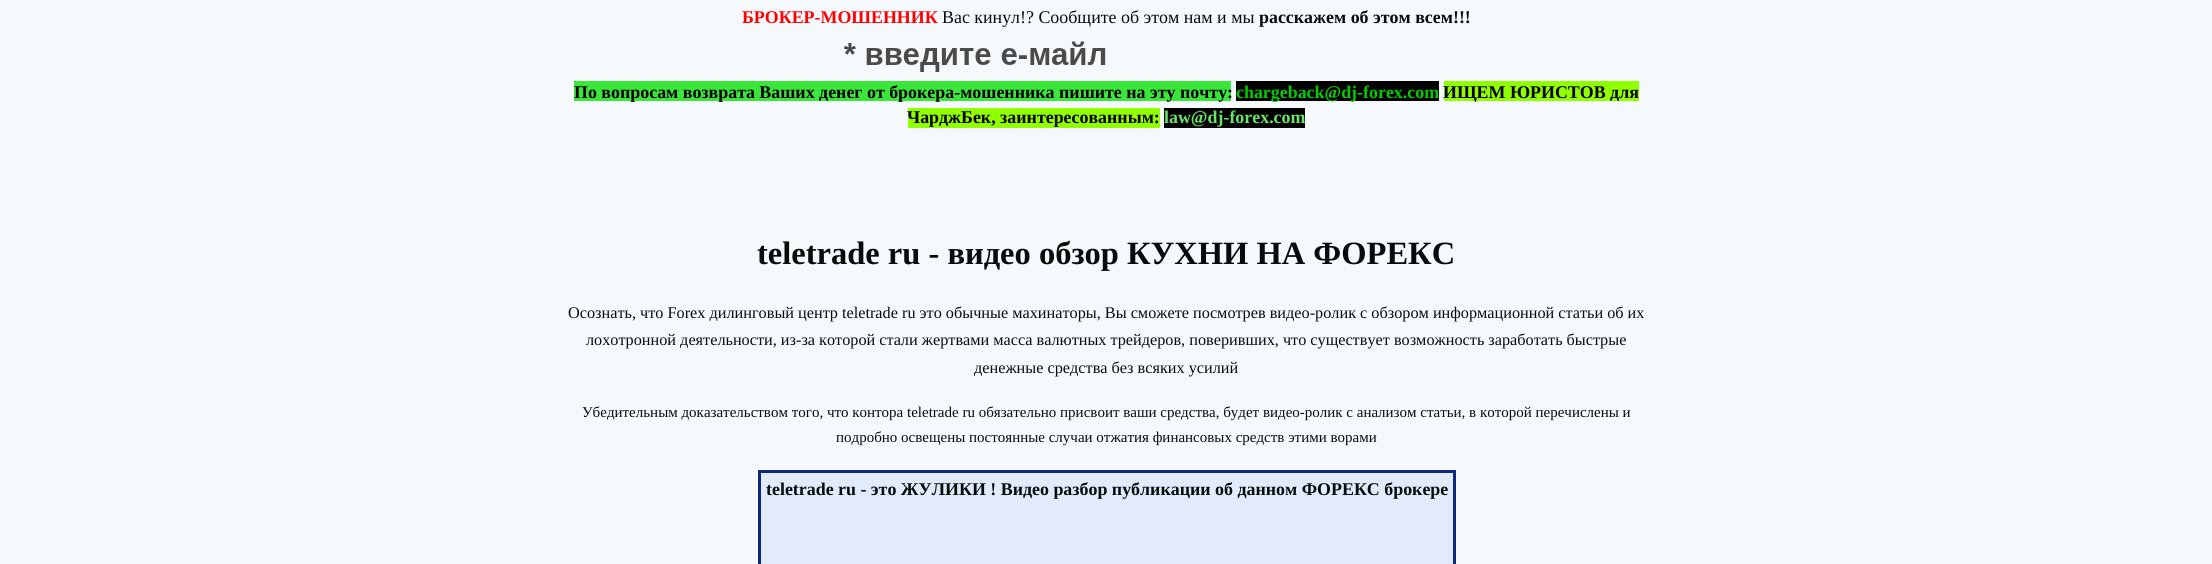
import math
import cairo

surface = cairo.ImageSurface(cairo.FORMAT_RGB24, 2212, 564)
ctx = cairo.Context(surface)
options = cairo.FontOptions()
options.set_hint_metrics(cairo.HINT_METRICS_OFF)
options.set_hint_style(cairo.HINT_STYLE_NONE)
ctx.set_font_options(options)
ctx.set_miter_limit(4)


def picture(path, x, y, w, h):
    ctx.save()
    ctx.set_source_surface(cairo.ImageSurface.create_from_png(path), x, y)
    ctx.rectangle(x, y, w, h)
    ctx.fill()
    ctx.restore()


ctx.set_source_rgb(0.961, 0.976, 0.988)
ctx.paint()
ctx.select_font_face("Liberation Serif", cairo.FONT_SLANT_NORMAL, cairo.FONT_WEIGHT_BOLD)
ctx.set_font_size(17.9)
ctx.set_source_rgb(1, 0, 0)
ctx.move_to(742, 23)
ctx.show_text("БРОКЕР-МОШЕННИК")
ctx.select_font_face("Liberation Serif")
ctx.set_source_rgb(0.027, 0.047, 0.047)
ctx.move_to(942, 23)
ctx.show_text("Вас кинул!? Сообщите об этом нам и мы")
ctx.select_font_face("Liberation Serif", cairo.FONT_SLANT_NORMAL, cairo.FONT_WEIGHT_BOLD)
ctx.move_to(1259, 23)
ctx.show_text("расскажем об этом всем!!!")
picture("img1.png", 844, 41, 262, 31)
ctx.set_source_rgb(0.224, 0.902, 0.224)
ctx.rectangle(574, 81, 657, 20)
ctx.fill()
ctx.set_source_rgb(0.008, 0, 0.004)
ctx.move_to(574, 98)
ctx.show_text("По вопросам возврата Ваших денег от брокера-мошенника пишите на эту почту:")
ctx.set_source_rgb(0.012, 0, 0.008)
ctx.rectangle(1236, 81, 203, 20)
ctx.fill()
ctx.set_source_rgb(0, 0.8, 0)
ctx.move_to(1236, 98)
ctx.show_text("chargeback@dj-forex.com")
ctx.set_source_rgb(0.565, 1, 0)
ctx.rectangle(1444, 81, 195, 20)
ctx.fill()
ctx.set_source_rgb(0.008, 0, 0.004)
ctx.move_to(1443, 98)
ctx.show_text("ИЩЕМ ЮРИСТОВ для")
ctx.set_source_rgb(0.565, 1, 0)
ctx.rectangle(908, 108, 252, 20)
ctx.fill()
ctx.set_source_rgb(0.008, 0, 0.004)
ctx.move_to(907, 123)
ctx.show_text("ЧарджБек, заинтересованным:")
ctx.set_source_rgb(0.012, 0.004, 0.004)
ctx.rectangle(1164, 108, 141, 20)
ctx.fill()
ctx.set_source_rgb(0.404, 0.902, 0.404)
ctx.move_to(1164, 123)
ctx.show_text("law@dj-forex.com")
ctx.set_font_size(32.5)
ctx.set_source_rgb(0.027, 0.047, 0.047)
ctx.move_to(757, 264)
ctx.show_text("teletrade ru - видео обзор КУХНИ НА ФОРЕКС")
ctx.select_font_face("Liberation Serif")
ctx.set_font_size(16.25)
ctx.move_to(568, 318)
ctx.show_text("Осознать, что Forex дилинговый центр teletrade ru это обычные махинаторы, Вы сможете посмотрев видео-ролик с обзором информационной статьи об их")
ctx.move_to(586, 345)
ctx.show_text("лохотронной деятельности, из-за которой стали жертвами масса валютных трейдеров, поверивших, что существует возможность заработать быстрые")
ctx.move_to(974, 373)
ctx.show_text("денежные средства без всяких усилий")
ctx.set_font_size(15)
ctx.move_to(582, 417)
ctx.show_text("Убедительным доказательством того, что контора teletrade ru обязательно присвоит ваши средства, будет видео-ролик с анализом статьи, в которой перечислены и")
ctx.move_to(836, 442)
ctx.show_text("подробно освещены постоянные случаи отжатия финансовых средств этими ворами")
ctx.set_source_rgb(0.882, 0.918, 0.984)
ctx.rectangle(759.5, 471.5, 695, 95)
ctx.fill_preserve()
ctx.set_source_rgb(0.059, 0.161, 0.478)
ctx.set_line_width(3)
ctx.stroke()
ctx.select_font_face("Liberation Serif", cairo.FONT_SLANT_NORMAL, cairo.FONT_WEIGHT_BOLD)
ctx.set_font_size(17.9)
ctx.set_source_rgb(0.027, 0.047, 0.047)
ctx.move_to(766, 495)
ctx.show_text("teletrade ru - это ЖУЛИКИ ! Видео разбор публикации об данном ФОРЕКС брокере")
surface.write_to_png("page.png")
